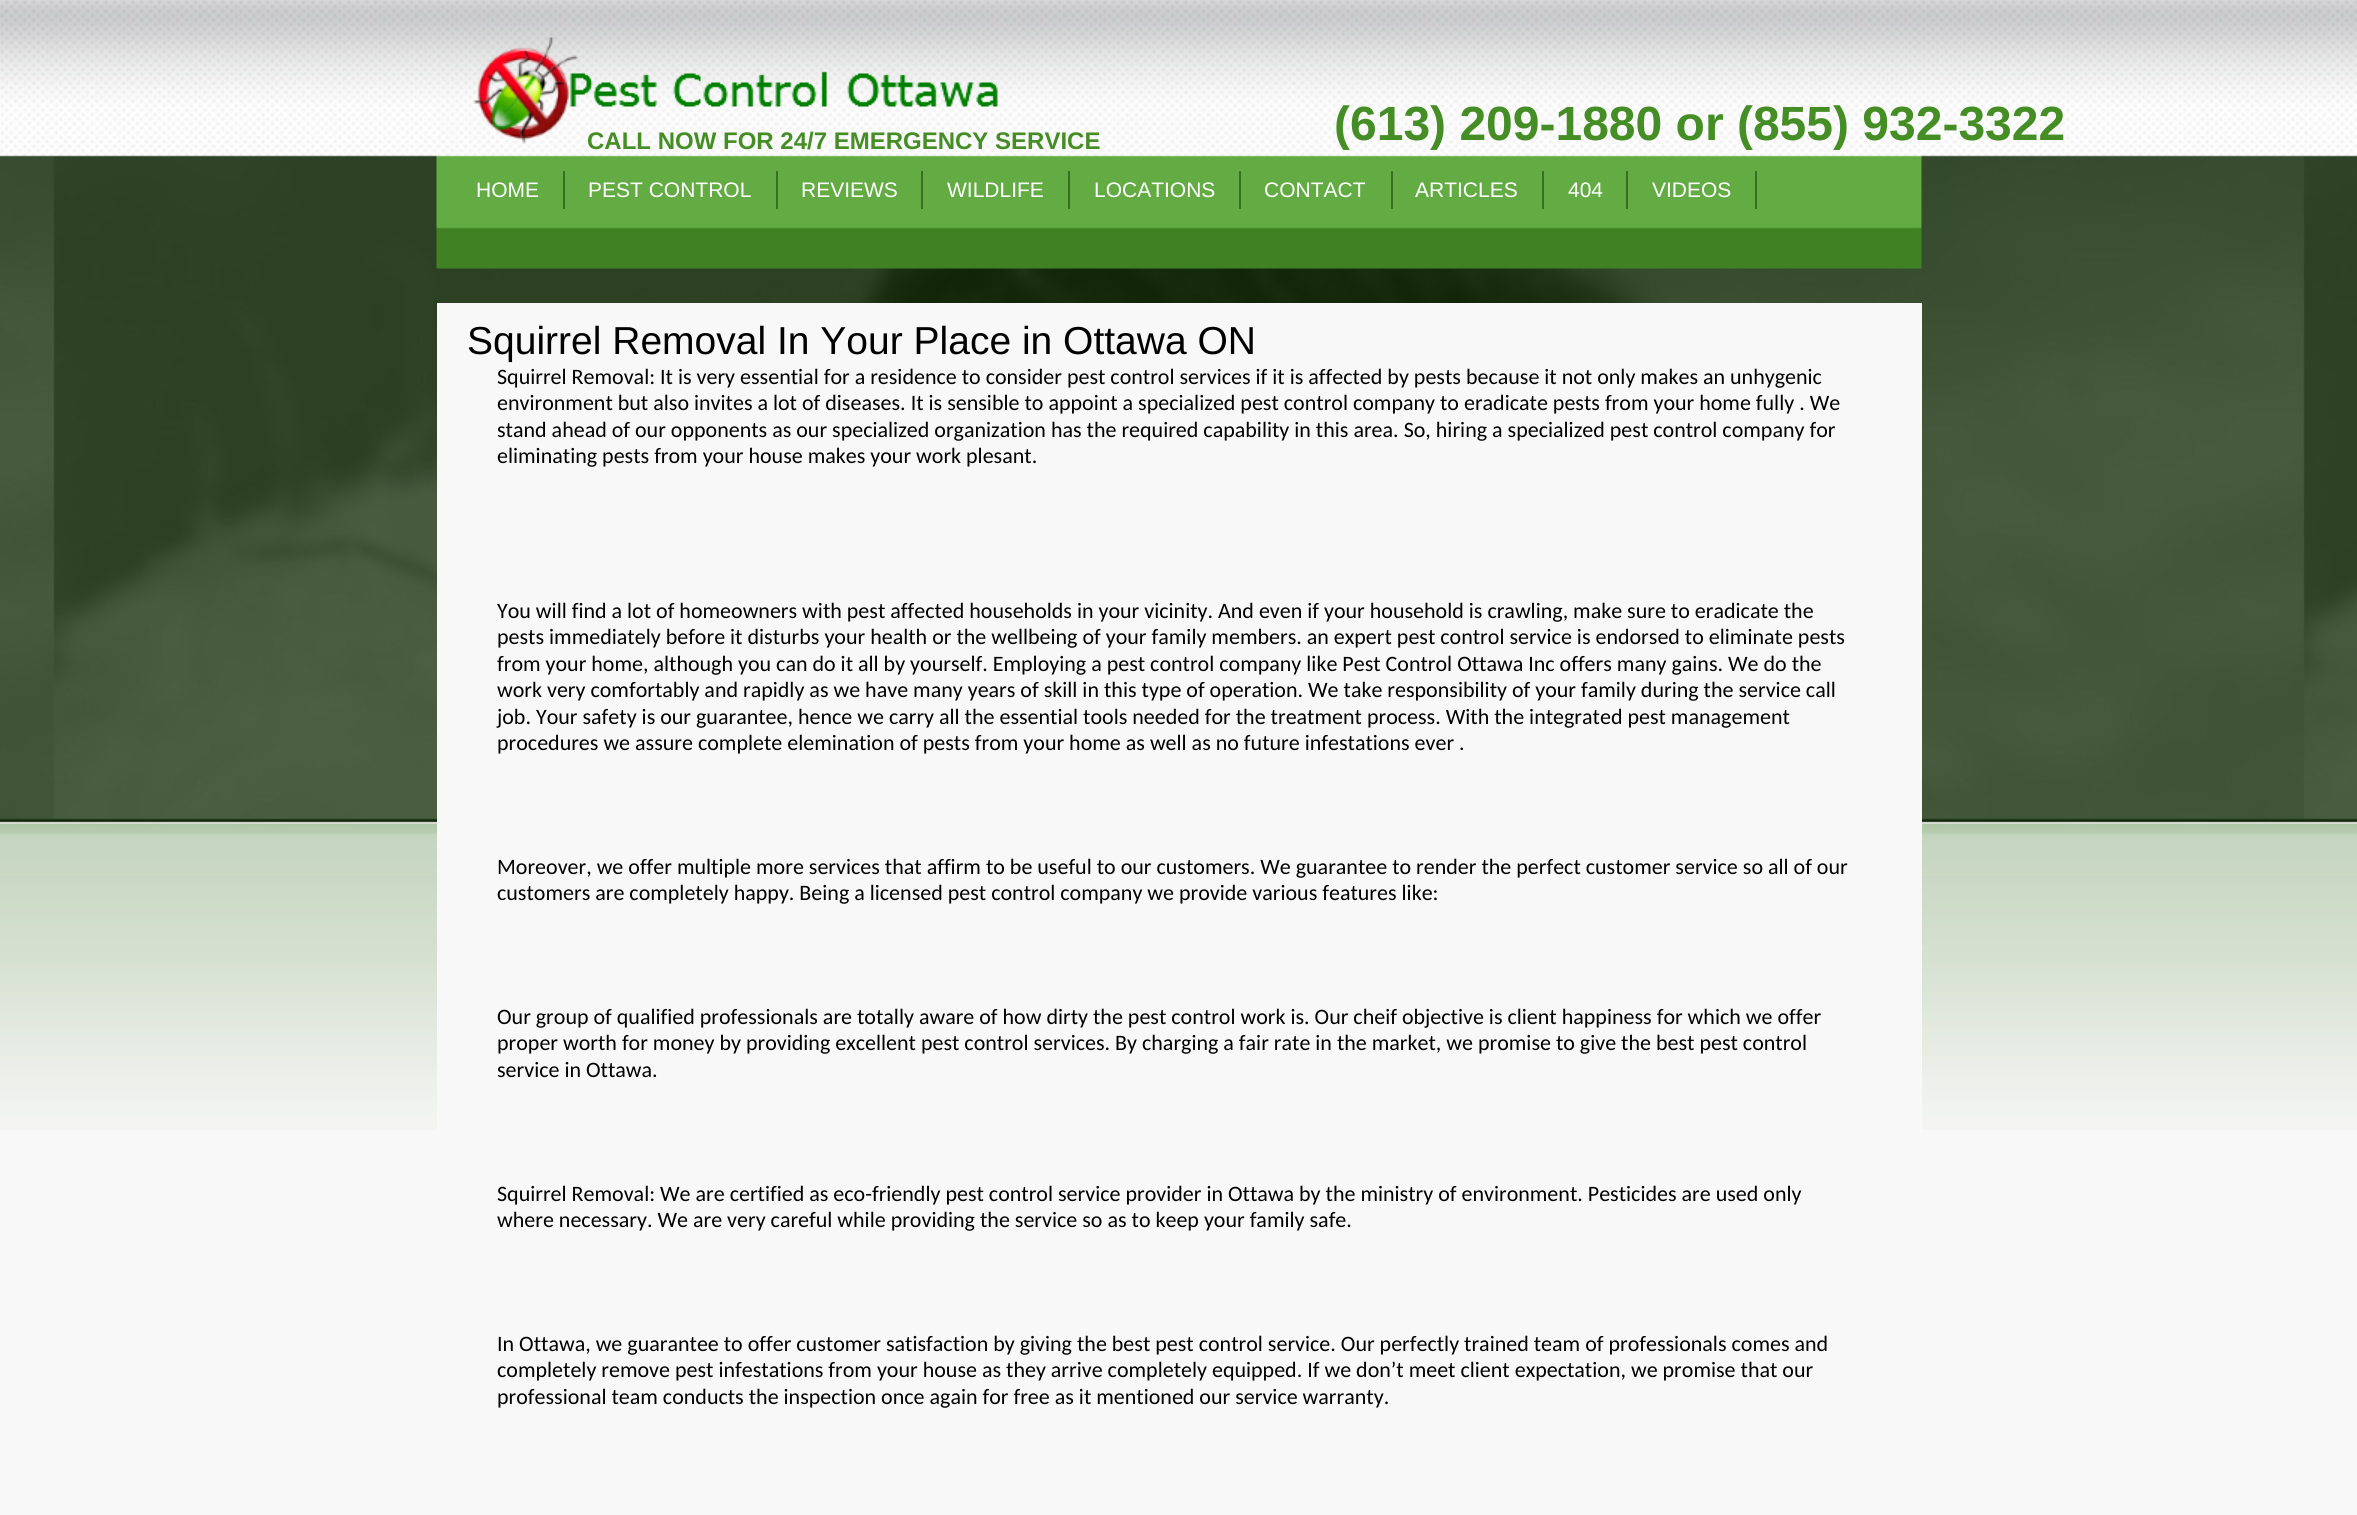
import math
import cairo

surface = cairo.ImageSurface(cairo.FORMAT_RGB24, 2357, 1515)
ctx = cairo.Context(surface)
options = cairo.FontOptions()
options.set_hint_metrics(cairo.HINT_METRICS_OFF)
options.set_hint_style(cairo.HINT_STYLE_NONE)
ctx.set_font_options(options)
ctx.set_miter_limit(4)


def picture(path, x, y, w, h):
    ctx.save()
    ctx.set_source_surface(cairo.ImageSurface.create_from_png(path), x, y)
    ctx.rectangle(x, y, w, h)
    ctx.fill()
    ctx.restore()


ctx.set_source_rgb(0.969, 0.969, 0.969)
ctx.paint()
picture("img1.png", 0, 0, 2357, 1130)
picture("img2.png", 436, 29, 1486, 240)
ctx.set_source_rgb(0.969, 0.969, 0.969)
ctx.rectangle(437, 303, 1485, 827)
ctx.fill()
picture("img3.png", 473, 37, 525, 107)
ctx.select_font_face("Liberation Sans", cairo.FONT_SLANT_NORMAL, cairo.FONT_WEIGHT_BOLD)
ctx.set_font_size(24)
ctx.set_source_rgb(0.271, 0.557, 0.145)
ctx.move_to(587, 149)
ctx.show_text("CALL NOW FOR 24/7 EMERGENCY SERVICE")
ctx.set_font_size(48)
ctx.move_to(1334, 140)
ctx.show_text("(613) 209-1880 or (855) 932-3322")
ctx.select_font_face("Liberation Sans")
ctx.set_font_size(39)
ctx.set_source_rgb(0, 0, 0)
ctx.move_to(467, 354)
ctx.show_text("Squirrel Removal In Your Place in Ottawa ON")
ctx.select_font_face("Carlito")
ctx.set_font_size(22)
ctx.move_to(497, 384)
ctx.show_text("Squirrel Removal: It is very essential for a residence to consider pest control services if it is affected by pests because it not only makes an unhygenic")
ctx.move_to(497, 410)
ctx.show_text("environment but also invites a lot of diseases. It is sensible to appoint a specialized pest control company to eradicate pests from your home fully . We")
ctx.move_to(497, 437)
ctx.show_text("stand ahead of our opponents as our specialized organization has the required capability in this area. So, hiring a specialized pest control company for")
ctx.move_to(497, 463)
ctx.show_text("eliminating pests from your house makes your work plesant.")
ctx.move_to(497, 618)
ctx.show_text("You will find a lot of homeowners with pest affected households in your vicinity. And even if your household is crawling, make sure to eradicate the")
ctx.move_to(497, 644)
ctx.show_text("pests immediately before it disturbs your health or the wellbeing of your family members. an expert pest control service is endorsed to eliminate pests")
ctx.move_to(497, 671)
ctx.show_text("from your home, although you can do it all by yourself. Employing a pest control company like Pest Control Ottawa Inc offers many gains. We do the")
ctx.move_to(497, 697)
ctx.show_text("work very comfortably and rapidly as we have many years of skill in this type of operation. We take responsibility of your family during the service call")
ctx.move_to(497, 724)
ctx.show_text("job. Your safety is our guarantee, hence we carry all the essential tools needed for the treatment process. With the integrated pest management")
ctx.move_to(497, 750)
ctx.show_text("procedures we assure complete elemination of pests from your home as well as no future infestations ever .")
ctx.move_to(497, 874)
ctx.show_text("Moreover, we offer multiple more services that affirm to be useful to our customers. We guarantee to render the perfect customer service so all of our")
ctx.move_to(497, 900)
ctx.show_text("customers are completely happy. Being a licensed pest control company we provide various features like:")
ctx.move_to(497, 1024)
ctx.show_text("Our group of qualified professionals are totally aware of how dirty the pest control work is. Our cheif objective is client happiness for which we offer")
ctx.move_to(497, 1050)
ctx.show_text("proper worth for money by providing excellent pest control services. By charging a fair rate in the market, we promise to give the best pest control")
ctx.move_to(497, 1077)
ctx.show_text("service in Ottawa.")
ctx.move_to(497, 1201)
ctx.show_text("Squirrel Removal: We are certified as eco-friendly pest control service provider in Ottawa by the ministry of environment. Pesticides are used only")
ctx.move_to(497, 1227)
ctx.show_text("where necessary. We are very careful while providing the service so as to keep your family safe.")
ctx.move_to(497, 1351)
ctx.show_text("In Ottawa, we guarantee to offer customer satisfaction by giving the best pest control service. Our perfectly trained team of professionals comes and")
ctx.move_to(497, 1377)
ctx.show_text("completely remove pest infestations from your house as they arrive completely equipped. If we don’t meet client expectation, we promise that our")
ctx.move_to(497, 1404)
ctx.show_text("professional team conducts the inspection once again for free as it mentioned our service warranty.")
ctx.select_font_face("Liberation Sans")
ctx.set_font_size(21)
ctx.set_source_rgb(1, 1, 1)
ctx.move_to(476, 197)
ctx.show_text("HOME")
ctx.set_source_rgb(0.224, 0.435, 0.129)
ctx.rectangle(563, 171, 2, 38)
ctx.fill()
ctx.set_source_rgb(1, 1, 1)
ctx.move_to(588, 197)
ctx.show_text("PEST CONTROL")
ctx.set_source_rgb(0.224, 0.435, 0.129)
ctx.rectangle(776, 171, 2, 38)
ctx.fill()
ctx.set_source_rgb(1, 1, 1)
ctx.move_to(801, 197)
ctx.show_text("REVIEWS")
ctx.set_source_rgb(0.224, 0.435, 0.129)
ctx.rectangle(921, 171, 2, 38)
ctx.fill()
ctx.set_source_rgb(1, 1, 1)
ctx.move_to(947, 197)
ctx.show_text("WILDLIFE")
ctx.set_source_rgb(0.224, 0.435, 0.129)
ctx.rectangle(1068, 171, 2, 38)
ctx.fill()
ctx.set_source_rgb(1, 1, 1)
ctx.move_to(1094, 197)
ctx.show_text("LOCATIONS")
ctx.set_source_rgb(0.224, 0.435, 0.129)
ctx.rectangle(1239, 171, 2, 38)
ctx.fill()
ctx.set_source_rgb(1, 1, 1)
ctx.move_to(1264, 197)
ctx.show_text("CONTACT")
ctx.set_source_rgb(0.224, 0.435, 0.129)
ctx.rectangle(1391, 171, 2, 38)
ctx.fill()
ctx.set_source_rgb(1, 1, 1)
ctx.move_to(1415, 197)
ctx.show_text("ARTICLES")
ctx.set_source_rgb(0.224, 0.435, 0.129)
ctx.rectangle(1542, 171, 2, 38)
ctx.fill()
ctx.set_source_rgb(1, 1, 1)
ctx.move_to(1568, 197)
ctx.show_text("404")
ctx.set_source_rgb(0.224, 0.435, 0.129)
ctx.rectangle(1626, 171, 2, 38)
ctx.fill()
ctx.set_source_rgb(1, 1, 1)
ctx.move_to(1652, 197)
ctx.show_text("VIDEOS")
ctx.set_source_rgb(0.224, 0.435, 0.129)
ctx.rectangle(1755, 171, 2, 38)
ctx.fill()
surface.write_to_png("page.png")
